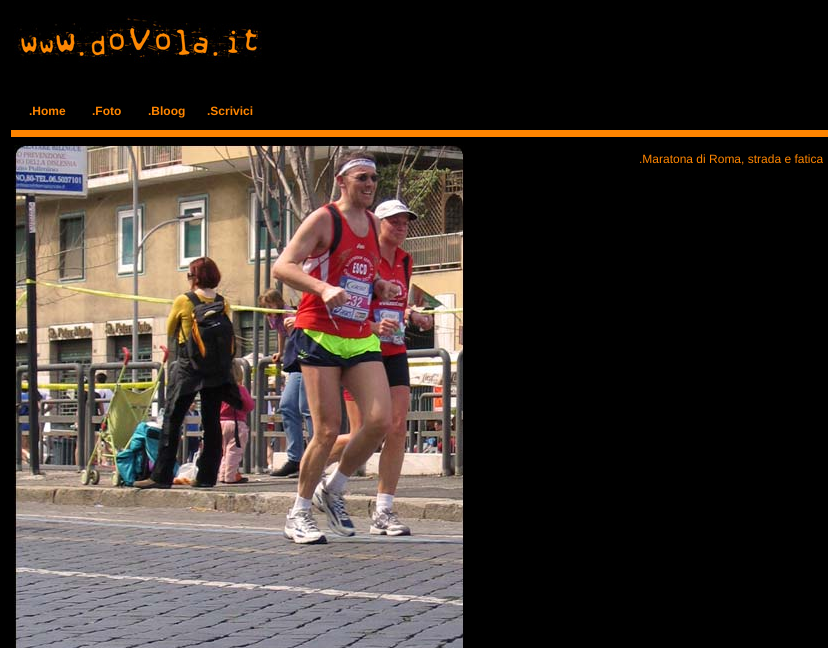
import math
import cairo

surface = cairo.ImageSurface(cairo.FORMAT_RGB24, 828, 648)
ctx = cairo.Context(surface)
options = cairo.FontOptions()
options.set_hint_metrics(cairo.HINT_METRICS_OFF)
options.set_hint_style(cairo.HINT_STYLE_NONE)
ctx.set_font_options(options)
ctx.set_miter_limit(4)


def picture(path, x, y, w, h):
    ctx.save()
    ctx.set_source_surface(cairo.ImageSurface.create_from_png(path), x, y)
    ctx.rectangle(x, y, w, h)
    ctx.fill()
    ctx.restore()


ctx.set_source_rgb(0, 0, 0)
ctx.paint()
picture("img1.png", 14, 15, 248, 48)
ctx.select_font_face("Liberation Sans", cairo.FONT_SLANT_NORMAL, cairo.FONT_WEIGHT_BOLD)
ctx.set_font_size(12)
ctx.set_source_rgb(1, 0.522, 0)
ctx.move_to(29, 115)
ctx.show_text(".Home")
ctx.move_to(92, 115)
ctx.show_text(".Foto")
ctx.move_to(148, 115)
ctx.show_text(".Bloog")
ctx.move_to(207, 115)
ctx.show_text(".Scrivici")
ctx.rectangle(11, 130, 817, 7)
ctx.fill()
picture("img2.png", 14, 145, 450, 503)
ctx.select_font_face("Liberation Sans")
ctx.move_to(639, 163)
ctx.show_text(".Maratona di Roma, strada e fatica")
surface.write_to_png("page.png")
